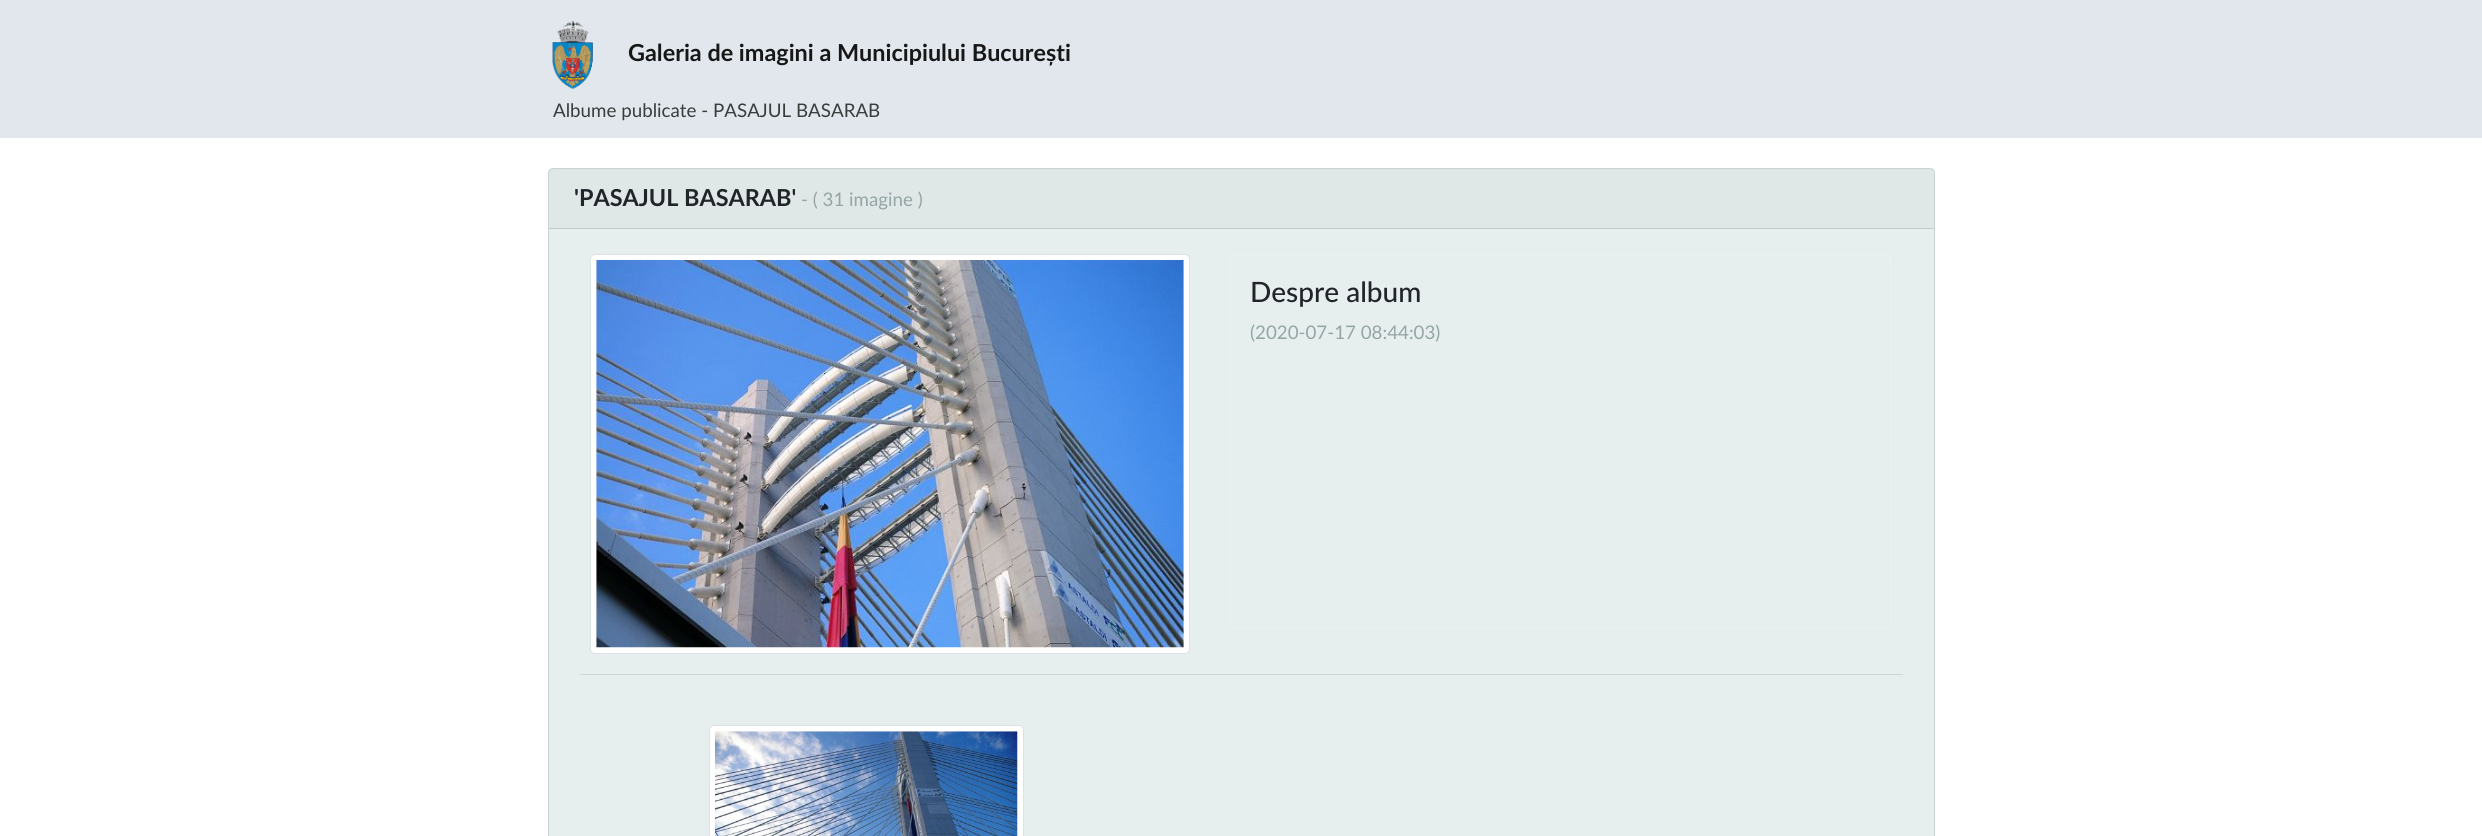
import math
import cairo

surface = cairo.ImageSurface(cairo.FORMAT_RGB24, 2482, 836)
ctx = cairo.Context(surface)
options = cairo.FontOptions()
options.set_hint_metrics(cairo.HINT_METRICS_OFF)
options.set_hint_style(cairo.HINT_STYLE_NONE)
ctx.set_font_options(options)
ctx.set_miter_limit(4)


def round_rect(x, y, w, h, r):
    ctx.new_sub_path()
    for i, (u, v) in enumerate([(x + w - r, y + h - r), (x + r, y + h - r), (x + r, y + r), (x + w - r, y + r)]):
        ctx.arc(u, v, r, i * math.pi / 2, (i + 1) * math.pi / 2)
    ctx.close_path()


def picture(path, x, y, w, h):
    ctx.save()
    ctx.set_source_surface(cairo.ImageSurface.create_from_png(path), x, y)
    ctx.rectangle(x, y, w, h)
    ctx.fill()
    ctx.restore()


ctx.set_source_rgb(1, 1, 1)
ctx.paint()
ctx.set_source_rgb(0.882, 0.906, 0.922)
ctx.rectangle(0, 0, 2482, 138)
ctx.fill()
picture("img1.png", 552, 20, 41, 70)
ctx.select_font_face("Lato", cairo.FONT_SLANT_NORMAL, cairo.FONT_WEIGHT_BOLD)
ctx.set_font_size(23.4)
ctx.set_source_rgb(0.09, 0.09, 0.094)
ctx.move_to(628, 61)
ctx.show_text("Galeria de imagini a Municipiului București")
ctx.select_font_face("Lato")
ctx.set_font_size(18.75)
ctx.set_source_rgb(0.22, 0.239, 0.239)
ctx.move_to(553, 117)
ctx.show_text("Albume publicate - PASAJUL BASARAB")
ctx.set_source_rgb(0.902, 0.933, 0.933)
round_rect(548, 168, 1387, 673, 5)
ctx.fill()
round_rect(548.5, 168.5, 1386, 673, 4.5)
ctx.set_source_rgba(0, 0, 0, 0.12)
ctx.set_line_width(1)
ctx.stroke()
ctx.set_source_rgba(0, 0, 0, 0.03)
ctx.rectangle(549, 169, 1385, 59)
ctx.fill()
ctx.set_source_rgb(0.765, 0.792, 0.792)
ctx.rectangle(549, 228, 1385, 1)
ctx.fill()
ctx.select_font_face("Lato", cairo.FONT_SLANT_NORMAL, cairo.FONT_WEIGHT_BOLD)
ctx.set_font_size(23.4)
ctx.set_source_rgb(0.129, 0.145, 0.161)
ctx.move_to(574, 206)
ctx.show_text("'PASAJUL BASARAB'")
ctx.select_font_face("Lato")
ctx.set_font_size(18.75)
ctx.set_source_rgb(0.584, 0.647, 0.651)
ctx.move_to(801, 206)
ctx.show_text("- ( 31 imagine )")
ctx.set_source_rgb(1, 1, 1)
round_rect(590.5, 254.5, 599, 399, 4.5)
ctx.fill_preserve()
ctx.set_source_rgb(0.871, 0.886, 0.902)
ctx.stroke()
picture("img2.png", 596, 260, 588, 388)
round_rect(1230.5, 254.5, 660, 374, 4.5)
ctx.set_source_rgb(0.925, 0.941, 0.945)
ctx.stroke()
ctx.select_font_face("Lato Medium")
ctx.set_font_size(28)
ctx.set_source_rgb(0.129, 0.145, 0.161)
ctx.move_to(1250, 302)
ctx.show_text("Despre album")
ctx.select_font_face("Lato")
ctx.set_font_size(18.75)
ctx.set_source_rgb(0.584, 0.647, 0.651)
ctx.move_to(1250, 339)
ctx.show_text("(2020-07-17 08:44:03)")
ctx.set_source_rgb(0.812, 0.839, 0.839)
ctx.rectangle(580, 674, 1323, 1)
ctx.fill()
ctx.set_source_rgb(1, 1, 1)
round_rect(709.5, 725.5, 314, 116, 4.5)
ctx.fill_preserve()
ctx.set_source_rgb(0.871, 0.886, 0.902)
ctx.stroke()
picture("img3.png", 715, 731, 303, 105)
surface.write_to_png("page.png")
